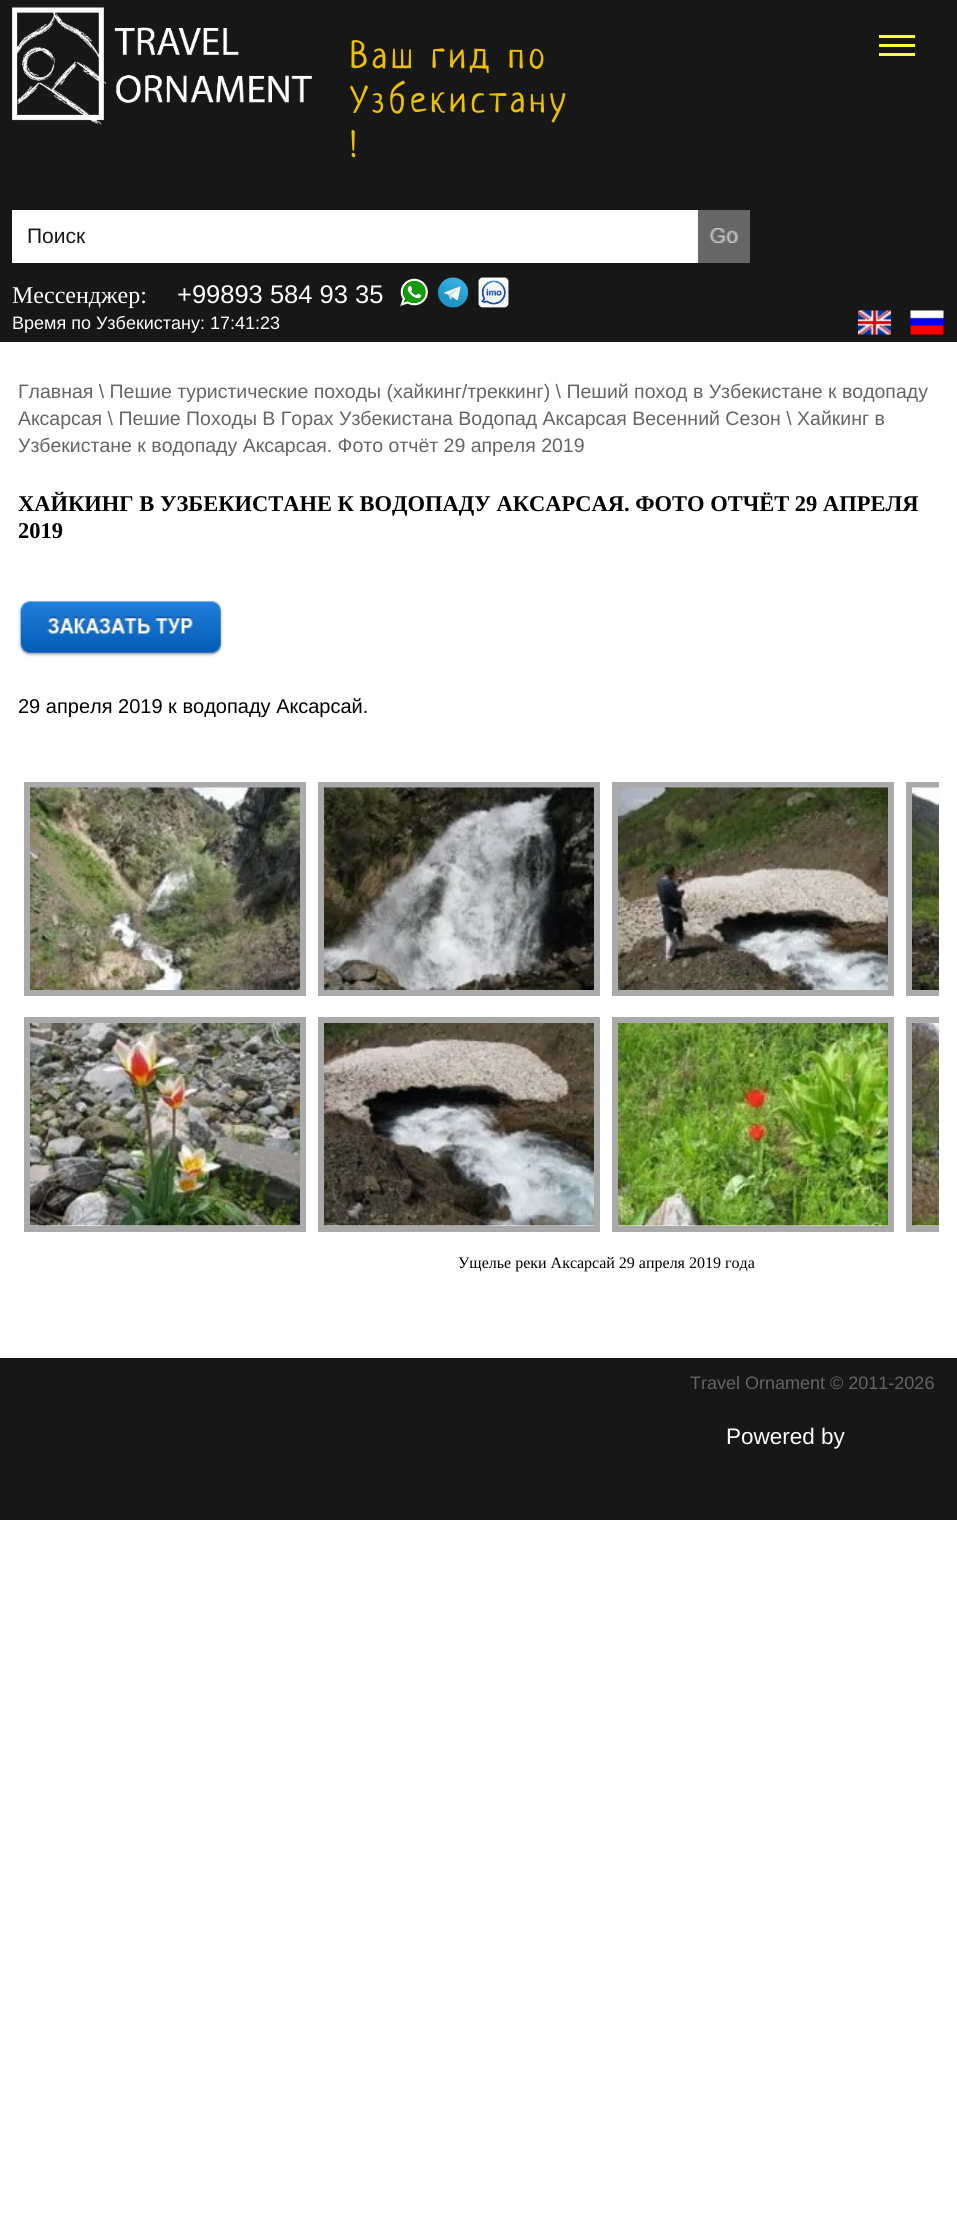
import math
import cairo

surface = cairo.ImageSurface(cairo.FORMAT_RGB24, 957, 2232)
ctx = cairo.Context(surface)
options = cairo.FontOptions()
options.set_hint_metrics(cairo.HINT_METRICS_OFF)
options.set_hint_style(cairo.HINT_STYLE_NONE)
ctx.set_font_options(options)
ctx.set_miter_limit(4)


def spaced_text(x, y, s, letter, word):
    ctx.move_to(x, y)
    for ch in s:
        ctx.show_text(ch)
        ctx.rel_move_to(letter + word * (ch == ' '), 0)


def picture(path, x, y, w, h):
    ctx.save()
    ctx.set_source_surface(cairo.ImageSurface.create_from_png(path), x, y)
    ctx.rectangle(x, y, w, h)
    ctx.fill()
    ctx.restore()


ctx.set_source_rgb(1, 1, 1)
ctx.paint()
ctx.set_source_rgb(0.09, 0.09, 0.09)
ctx.rectangle(0, 0, 957, 342)
ctx.fill()
ctx.set_source_rgb(1, 1, 0.2)
ctx.rectangle(879, 35, 36, 3)
ctx.fill()
ctx.rectangle(879, 44, 36, 3)
ctx.fill()
ctx.rectangle(879, 53, 36, 3)
ctx.fill()
picture("img1.png", 12, 7, 300, 118)
ctx.select_font_face("Neucha")
ctx.set_font_size(37.25)
ctx.set_source_rgb(0.925, 0.753, 0)
spaced_text(350, 68, "Ваш гид по", 4, 0)
spaced_text(350, 112, "Узбекистану", 4, 0)
spaced_text(350, 157, "!", 2, 0)
ctx.set_source_rgb(1, 1, 1)
ctx.rectangle(12, 210, 686, 53)
ctx.fill()
ctx.select_font_face("Liberation Sans")
ctx.set_font_size(21)
ctx.set_source_rgb(0.09, 0.09, 0.09)
ctx.move_to(27, 243)
ctx.show_text("Поиск")
ctx.set_source_rgb(0.4, 0.4, 0.4)
ctx.rectangle(698, 210, 52, 53)
ctx.fill()
picture("img2.png", 709, 228, 29, 15)
ctx.select_font_face("Liberation Serif")
ctx.set_font_size(24)
ctx.set_source_rgb(1, 1, 1)
ctx.move_to(12, 303)
ctx.show_text("Мессенджер:")
ctx.select_font_face("Liberation Sans")
ctx.set_font_size(25.5)
ctx.move_to(177, 303)
ctx.show_text("+99893 584 93 35")
picture("img3.png", 400, 278, 28, 29)
picture("img4.png", 438, 277, 30, 31)
picture("img5.png", 478, 277, 31, 31)
ctx.set_font_size(18)
ctx.move_to(12, 329)
ctx.show_text("Время по Узбекистану: 17:41:23")
picture("img6.png", 858, 310, 33, 25)
picture("img7.png", 910, 310, 34, 25)
ctx.set_font_size(19.5)
ctx.set_source_rgb(0.396, 0.396, 0.396)
ctx.move_to(18, 398)
ctx.show_text("Главная \\ Пешие туристические походы (хайкинг/треккинг) \\ Пеший поход в Узбекистане к водопаду")
ctx.move_to(18, 425)
ctx.show_text("Аксарсая \\ Пешие Походы В Горах Узбекистана Водопад Аксарсая Весенний Сезон \\ Хайкинг в")
ctx.move_to(18, 452)
ctx.show_text("Узбекистане к водопаду Аксарсая. Фото отчёт 29 апреля 2019")
ctx.select_font_face("Liberation Serif", cairo.FONT_SLANT_NORMAL, cairo.FONT_WEIGHT_BOLD)
ctx.set_font_size(22.5)
ctx.set_source_rgb(0, 0, 0)
ctx.move_to(18, 511)
ctx.show_text("ХАЙКИНГ В УЗБЕКИСТАНЕ К ВОДОПАДУ АКСАРСАЯ. ФОТО ОТЧЁТ 29 АПРЕЛЯ")
ctx.move_to(18, 538)
ctx.show_text("2019")
picture("img8.png", 18, 600, 205, 57)
ctx.select_font_face("Liberation Sans")
ctx.set_font_size(20)
ctx.move_to(18, 713)
ctx.show_text("29 апреля 2019 к водопаду Аксарсай.")
ctx.rectangle(27, 785, 276, 208)
ctx.set_source_rgb(0.667, 0.667, 0.667)
ctx.set_line_width(6)
ctx.stroke()
picture("img9.png", 30, 787, 270, 203)
ctx.rectangle(321, 785, 276, 208)
ctx.stroke()
picture("img10.png", 324, 787, 270, 203)
ctx.rectangle(615, 785, 276, 208)
ctx.stroke()
picture("img11.png", 618, 787, 270, 203)
ctx.save()
ctx.rectangle(18, 776, 921, 499)
ctx.clip()
ctx.rectangle(909, 785, 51, 208)
ctx.stroke()
ctx.restore()
picture("img12.png", 912, 787, 27, 203)
ctx.rectangle(27, 1020, 276, 209)
ctx.stroke()
picture("img13.png", 30, 1023, 270, 203)
ctx.rectangle(321, 1020, 276, 209)
ctx.stroke()
picture("img14.png", 324, 1023, 270, 203)
ctx.rectangle(615, 1020, 276, 209)
ctx.stroke()
picture("img15.png", 618, 1023, 270, 203)
ctx.save()
ctx.rectangle(18, 776, 921, 499)
ctx.clip()
ctx.rectangle(909, 1020, 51, 209)
ctx.stroke()
ctx.restore()
picture("img16.png", 912, 1023, 27, 203)
ctx.select_font_face("Liberation Serif")
ctx.set_font_size(16)
ctx.set_source_rgb(0, 0, 0)
ctx.move_to(458, 1268)
ctx.show_text("Ущелье реки Аксарсай 29 апреля 2019 года")
ctx.set_source_rgb(0.09, 0.09, 0.09)
ctx.rectangle(0, 1358, 957, 162)
ctx.fill()
ctx.select_font_face("Liberation Sans")
ctx.set_font_size(18)
ctx.set_source_rgb(0.396, 0.396, 0.396)
ctx.move_to(690, 1389)
ctx.show_text("Travel Ornament © 2011-2026")
ctx.set_font_size(22.5)
ctx.set_source_rgb(1, 1, 1)
ctx.move_to(726, 1444)
ctx.show_text("Powered by")
surface.write_to_png("page.png")
